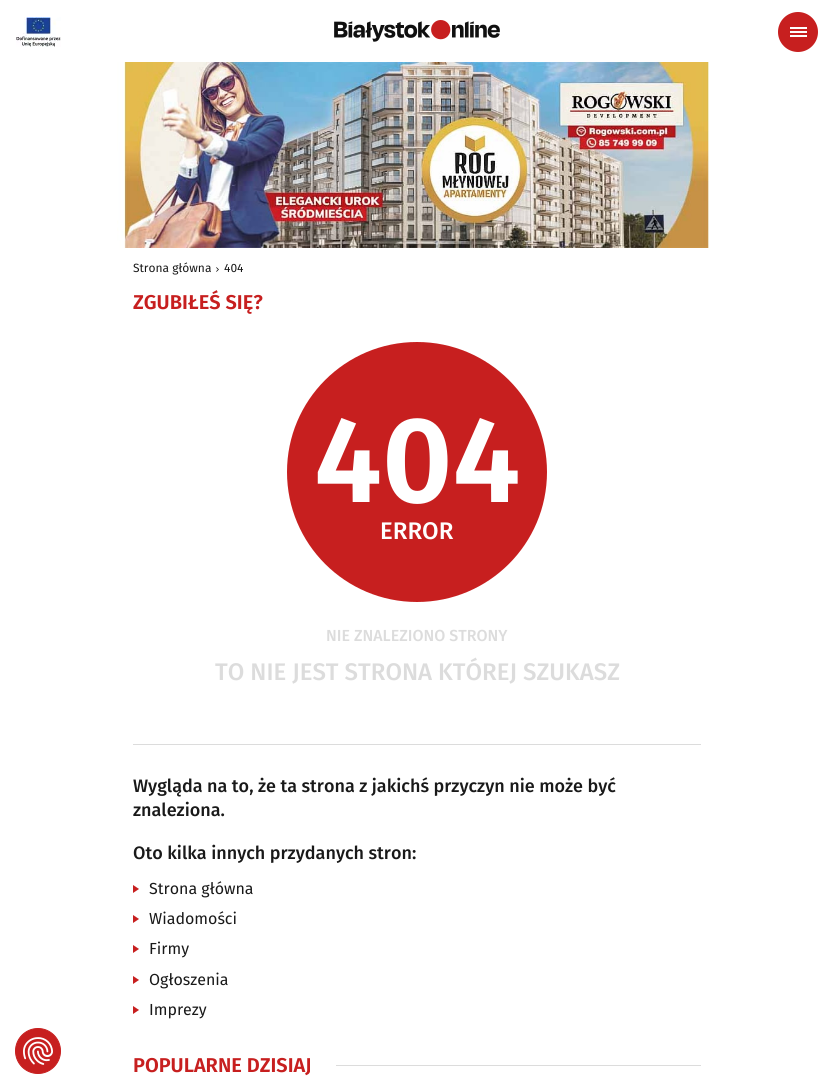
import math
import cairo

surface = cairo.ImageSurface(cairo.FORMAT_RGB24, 834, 1089)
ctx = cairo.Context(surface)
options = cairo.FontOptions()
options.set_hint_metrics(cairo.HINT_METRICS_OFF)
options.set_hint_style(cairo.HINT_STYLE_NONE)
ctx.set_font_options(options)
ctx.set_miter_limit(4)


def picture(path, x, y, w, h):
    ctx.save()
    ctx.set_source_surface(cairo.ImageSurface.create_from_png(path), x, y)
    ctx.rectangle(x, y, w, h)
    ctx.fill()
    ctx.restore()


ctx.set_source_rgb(1, 1, 1)
ctx.paint()
picture("img1.png", 16, 17, 45, 30)
picture("img2.png", 334, 20, 166, 22)
ctx.set_source_rgb(0.78, 0.122, 0.122)
ctx.arc(798, 32, 20, 0, 2 * math.pi)
ctx.fill()
ctx.set_source_rgb(1, 1, 1)
ctx.rectangle(790, 31, 17, 2)
ctx.fill()
ctx.rectangle(790, 27, 17, 2)
ctx.fill()
ctx.rectangle(790, 35, 17, 2)
ctx.fill()
picture("img3.png", 117, 62, 592, 186)
ctx.select_font_face("Fira Sans")
ctx.set_font_size(12)
ctx.set_source_rgb(0.098, 0.098, 0.098)
ctx.move_to(133, 272)
ctx.show_text("Strona główna")
picture("img4.png", 216, 267, 3, 5)
ctx.move_to(224, 272)
ctx.show_text("404")
ctx.set_source_rgb(0.78, 0.122, 0.122)
ctx.new_path()
ctx.arc(38, 1051, 22.5, 0, 2 * math.pi)
ctx.fill_preserve()
ctx.set_line_width(1)
ctx.stroke()
picture("img5.png", 23, 1037, 30, 28)
ctx.select_font_face("Fira Sans SemiBold")
ctx.set_font_size(20)
ctx.move_to(133, 309)
ctx.show_text("ZGUBIŁEŚ SIĘ?")
ctx.new_path()
ctx.arc(417, 472, 130, 0, 2 * math.pi)
ctx.fill()
ctx.set_font_size(122)
ctx.set_source_rgb(1, 1, 1)
ctx.move_to(314, 502)
ctx.show_text("404")
ctx.select_font_face("Fira Sans Medium")
ctx.set_font_size(24)
ctx.move_to(380, 539)
ctx.show_text("ERROR")
ctx.set_font_size(16)
ctx.set_source_rgb(0.863, 0.863, 0.863)
ctx.move_to(326, 641)
ctx.show_text("NIE ZNALEZIONO STRONY")
ctx.set_font_size(24)
ctx.move_to(215, 680)
ctx.show_text("TO NIE JEST STRONA KTÓREJ SZUKASZ")
ctx.rectangle(133, 744, 568, 1)
ctx.fill()
ctx.set_font_size(18)
ctx.set_source_rgb(0.098, 0.098, 0.098)
ctx.move_to(133, 792)
ctx.show_text("Wygląda na to, że ta strona z jakichś przyczyn nie może być")
ctx.move_to(133, 816)
ctx.show_text("znaleziona.")
ctx.move_to(133, 859)
ctx.show_text("Oto kilka innych przydanych stron:")
ctx.set_source_rgb(0.78, 0.122, 0.122)
ctx.new_path()
ctx.move_to(133, 893)
ctx.line_to(133, 885)
ctx.line_to(139, 889)
ctx.close_path()
ctx.fill()
ctx.select_font_face("Fira Sans")
ctx.set_font_size(16)
ctx.set_source_rgb(0.098, 0.098, 0.098)
ctx.move_to(149, 894)
ctx.show_text("Strona główna")
ctx.set_source_rgb(0.78, 0.122, 0.122)
ctx.new_path()
ctx.move_to(133, 923)
ctx.line_to(133, 915)
ctx.line_to(139, 919)
ctx.close_path()
ctx.fill()
ctx.set_source_rgb(0.098, 0.098, 0.098)
ctx.move_to(149, 924)
ctx.show_text("Wiadomości")
ctx.set_source_rgb(0.78, 0.122, 0.122)
ctx.new_path()
ctx.move_to(133, 953)
ctx.line_to(133, 945)
ctx.line_to(139, 949)
ctx.close_path()
ctx.fill()
ctx.set_source_rgb(0.098, 0.098, 0.098)
ctx.move_to(149, 954)
ctx.show_text("Firmy")
ctx.set_source_rgb(0.78, 0.122, 0.122)
ctx.new_path()
ctx.move_to(133, 984)
ctx.line_to(133, 976)
ctx.line_to(139, 980)
ctx.close_path()
ctx.fill()
ctx.set_source_rgb(0.098, 0.098, 0.098)
ctx.move_to(149, 985)
ctx.show_text("Ogłoszenia")
ctx.set_source_rgb(0.78, 0.122, 0.122)
ctx.new_path()
ctx.move_to(133, 1014)
ctx.line_to(133, 1006)
ctx.line_to(139, 1010)
ctx.close_path()
ctx.fill()
ctx.set_source_rgb(0.098, 0.098, 0.098)
ctx.move_to(149, 1015)
ctx.show_text("Imprezy")
ctx.select_font_face("Fira Sans SemiBold")
ctx.set_font_size(20)
ctx.set_source_rgb(0.78, 0.122, 0.122)
ctx.move_to(133, 1072)
ctx.show_text("POPULARNE DZISIAJ")
ctx.set_source_rgb(0.863, 0.863, 0.863)
ctx.rectangle(336, 1065, 365, 1)
ctx.fill()
surface.write_to_png("page.png")
